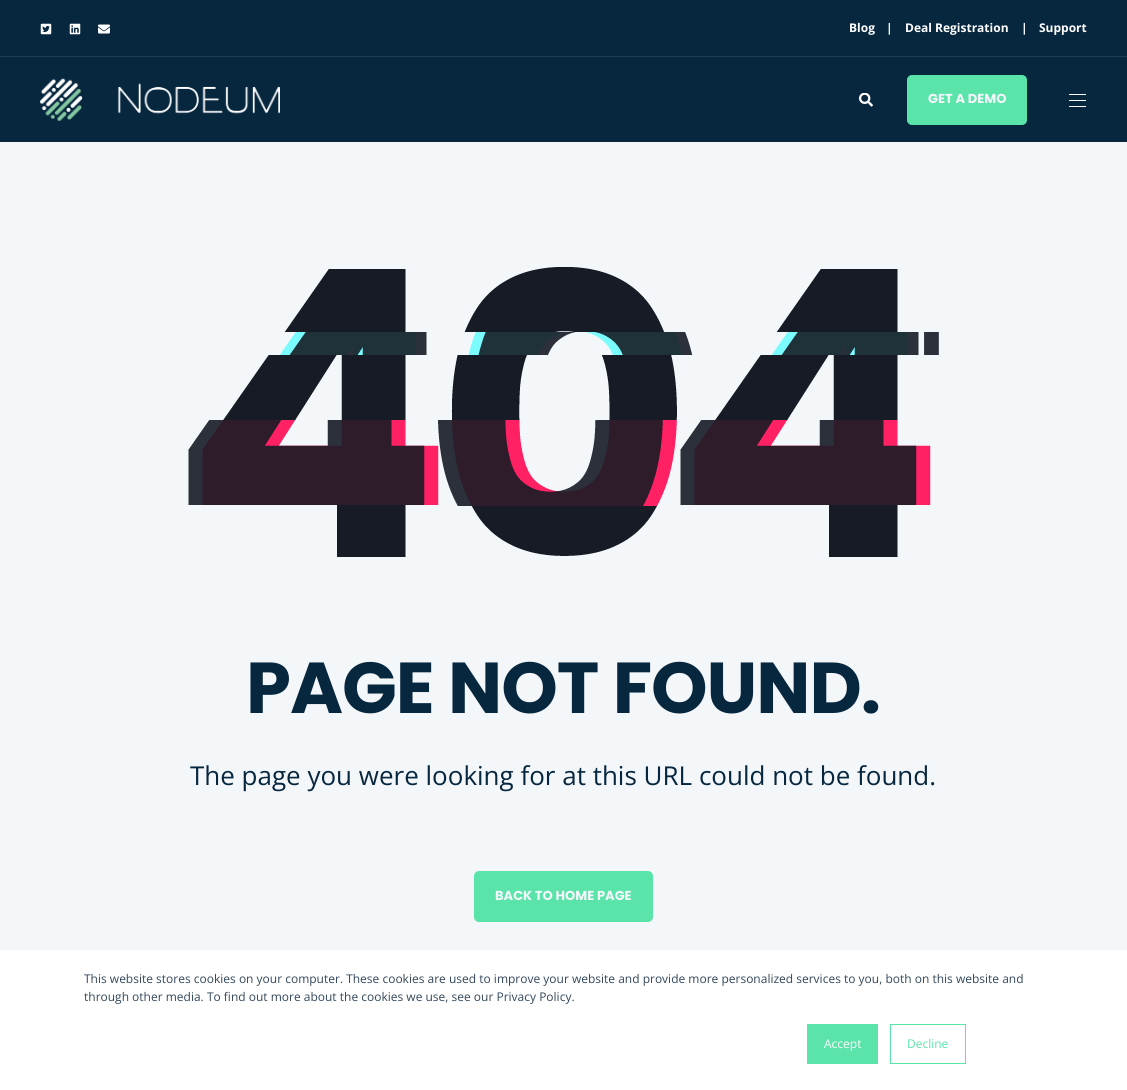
import math
import cairo

surface = cairo.ImageSurface(cairo.FORMAT_RGB24, 1127, 1090)
ctx = cairo.Context(surface)
options = cairo.FontOptions()
options.set_hint_metrics(cairo.HINT_METRICS_OFF)
options.set_hint_style(cairo.HINT_STYLE_NONE)
ctx.set_font_options(options)
ctx.set_miter_limit(4)


def spaced_text(x, y, s, letter, word):
    ctx.move_to(x, y)
    for ch in s:
        ctx.show_text(ch)
        ctx.rel_move_to(letter + word * (ch == ' '), 0)


def round_rect(x, y, w, h, r):
    ctx.new_sub_path()
    for i, (u, v) in enumerate([(x + w - r, y + h - r), (x + r, y + h - r), (x + r, y + r), (x + w - r, y + r)]):
        ctx.arc(u, v, r, i * math.pi / 2, (i + 1) * math.pi / 2)
    ctx.close_path()


def picture(path, x, y, w, h):
    ctx.save()
    ctx.set_source_surface(cairo.ImageSurface.create_from_png(path), x, y)
    ctx.rectangle(x, y, w, h)
    ctx.fill()
    ctx.restore()


ctx.set_source_rgb(0.957, 0.965, 0.98)
ctx.paint()
ctx.set_source_rgb(0.031, 0.153, 0.247)
ctx.rectangle(0, 0, 1127, 56)
ctx.fill()
ctx.set_source_rgb(0.129, 0.239, 0.322)
ctx.rectangle(0, 56, 1127, 1)
ctx.fill()
picture("img1.png", 40, 23, 12, 12)
picture("img2.png", 69, 23, 12, 12)
picture("img3.png", 98, 24, 12, 10)
ctx.select_font_face("Open Sans", cairo.FONT_SLANT_NORMAL, cairo.FONT_WEIGHT_BOLD)
ctx.set_font_size(12)
ctx.set_source_rgb(1, 1, 1)
ctx.move_to(849, 32)
ctx.show_text("Blog")
ctx.move_to(886, 32)
ctx.show_text("|")
ctx.move_to(905, 32)
ctx.show_text("Deal Registration")
ctx.move_to(1021, 32)
ctx.show_text("|")
ctx.move_to(1039, 32)
ctx.show_text("Support")
ctx.set_source_rgb(0.031, 0.153, 0.247)
ctx.rectangle(0, 57, 1127, 85)
ctx.fill()
picture("img4.png", 40, 78, 240, 43)
picture("img5.png", 859, 93, 14, 14)
ctx.set_source_rgb(0.357, 0.894, 0.667)
round_rect(907, 75, 120, 50, 5)
ctx.fill()
ctx.select_font_face("Poppins", cairo.FONT_SLANT_NORMAL, cairo.FONT_WEIGHT_BOLD)
ctx.set_font_size(13)
ctx.set_source_rgb(0.957, 0.965, 0.98)
ctx.move_to(928, 103)
ctx.show_text("GET A DEMO")
ctx.set_source_rgb(1, 1, 1)
ctx.rectangle(1069, 94, 17, 1)
ctx.fill()
ctx.rectangle(1069, 100, 17, 1)
ctx.fill()
ctx.rectangle(1069, 106, 17, 1)
ctx.fill()
picture("img6.png", 188, 267, 751, 290)
ctx.set_font_size(72)
ctx.set_source_rgb(0.031, 0.153, 0.247)
spaced_text(246, 713, "PAGE NOT FOUND.", -1, 0)
ctx.select_font_face("Open Sans")
ctx.set_font_size(26)
ctx.move_to(190, 785)
ctx.show_text("The page you were looking for at this URL could not be found.")
ctx.set_source_rgb(0.357, 0.894, 0.667)
round_rect(474, 871, 179, 51, 5)
ctx.fill()
ctx.select_font_face("Poppins", cairo.FONT_SLANT_NORMAL, cairo.FONT_WEIGHT_BOLD)
ctx.set_font_size(13)
ctx.set_source_rgb(0.957, 0.965, 0.98)
ctx.move_to(495, 900)
ctx.show_text("BACK TO HOME PAGE")
ctx.set_source_rgb(1, 1, 1)
ctx.rectangle(0, 950, 1127, 140)
ctx.fill()
ctx.select_font_face("Open Sans")
ctx.set_font_size(12)
ctx.set_source_rgb(0.2, 0.278, 0.357)
ctx.move_to(84, 983)
ctx.show_text("This website stores cookies on your computer. These cookies are used to improve your website and provide more personalized services to you, both on this website and")
ctx.move_to(84, 1001)
ctx.show_text("through other media. To find out more about the cookies we use, see our Privacy Policy.")
ctx.set_source_rgb(0.357, 0.894, 0.667)
ctx.rectangle(807, 1024, 71, 40)
ctx.fill()
ctx.set_source_rgb(1, 1, 1)
ctx.move_to(824, 1048)
ctx.show_text("Accept")
ctx.rectangle(890.5, 1024.5, 75, 39)
ctx.set_source_rgb(0.357, 0.894, 0.667)
ctx.set_line_width(1)
ctx.stroke()
ctx.move_to(907, 1048)
ctx.show_text("Decline")
surface.write_to_png("page.png")
